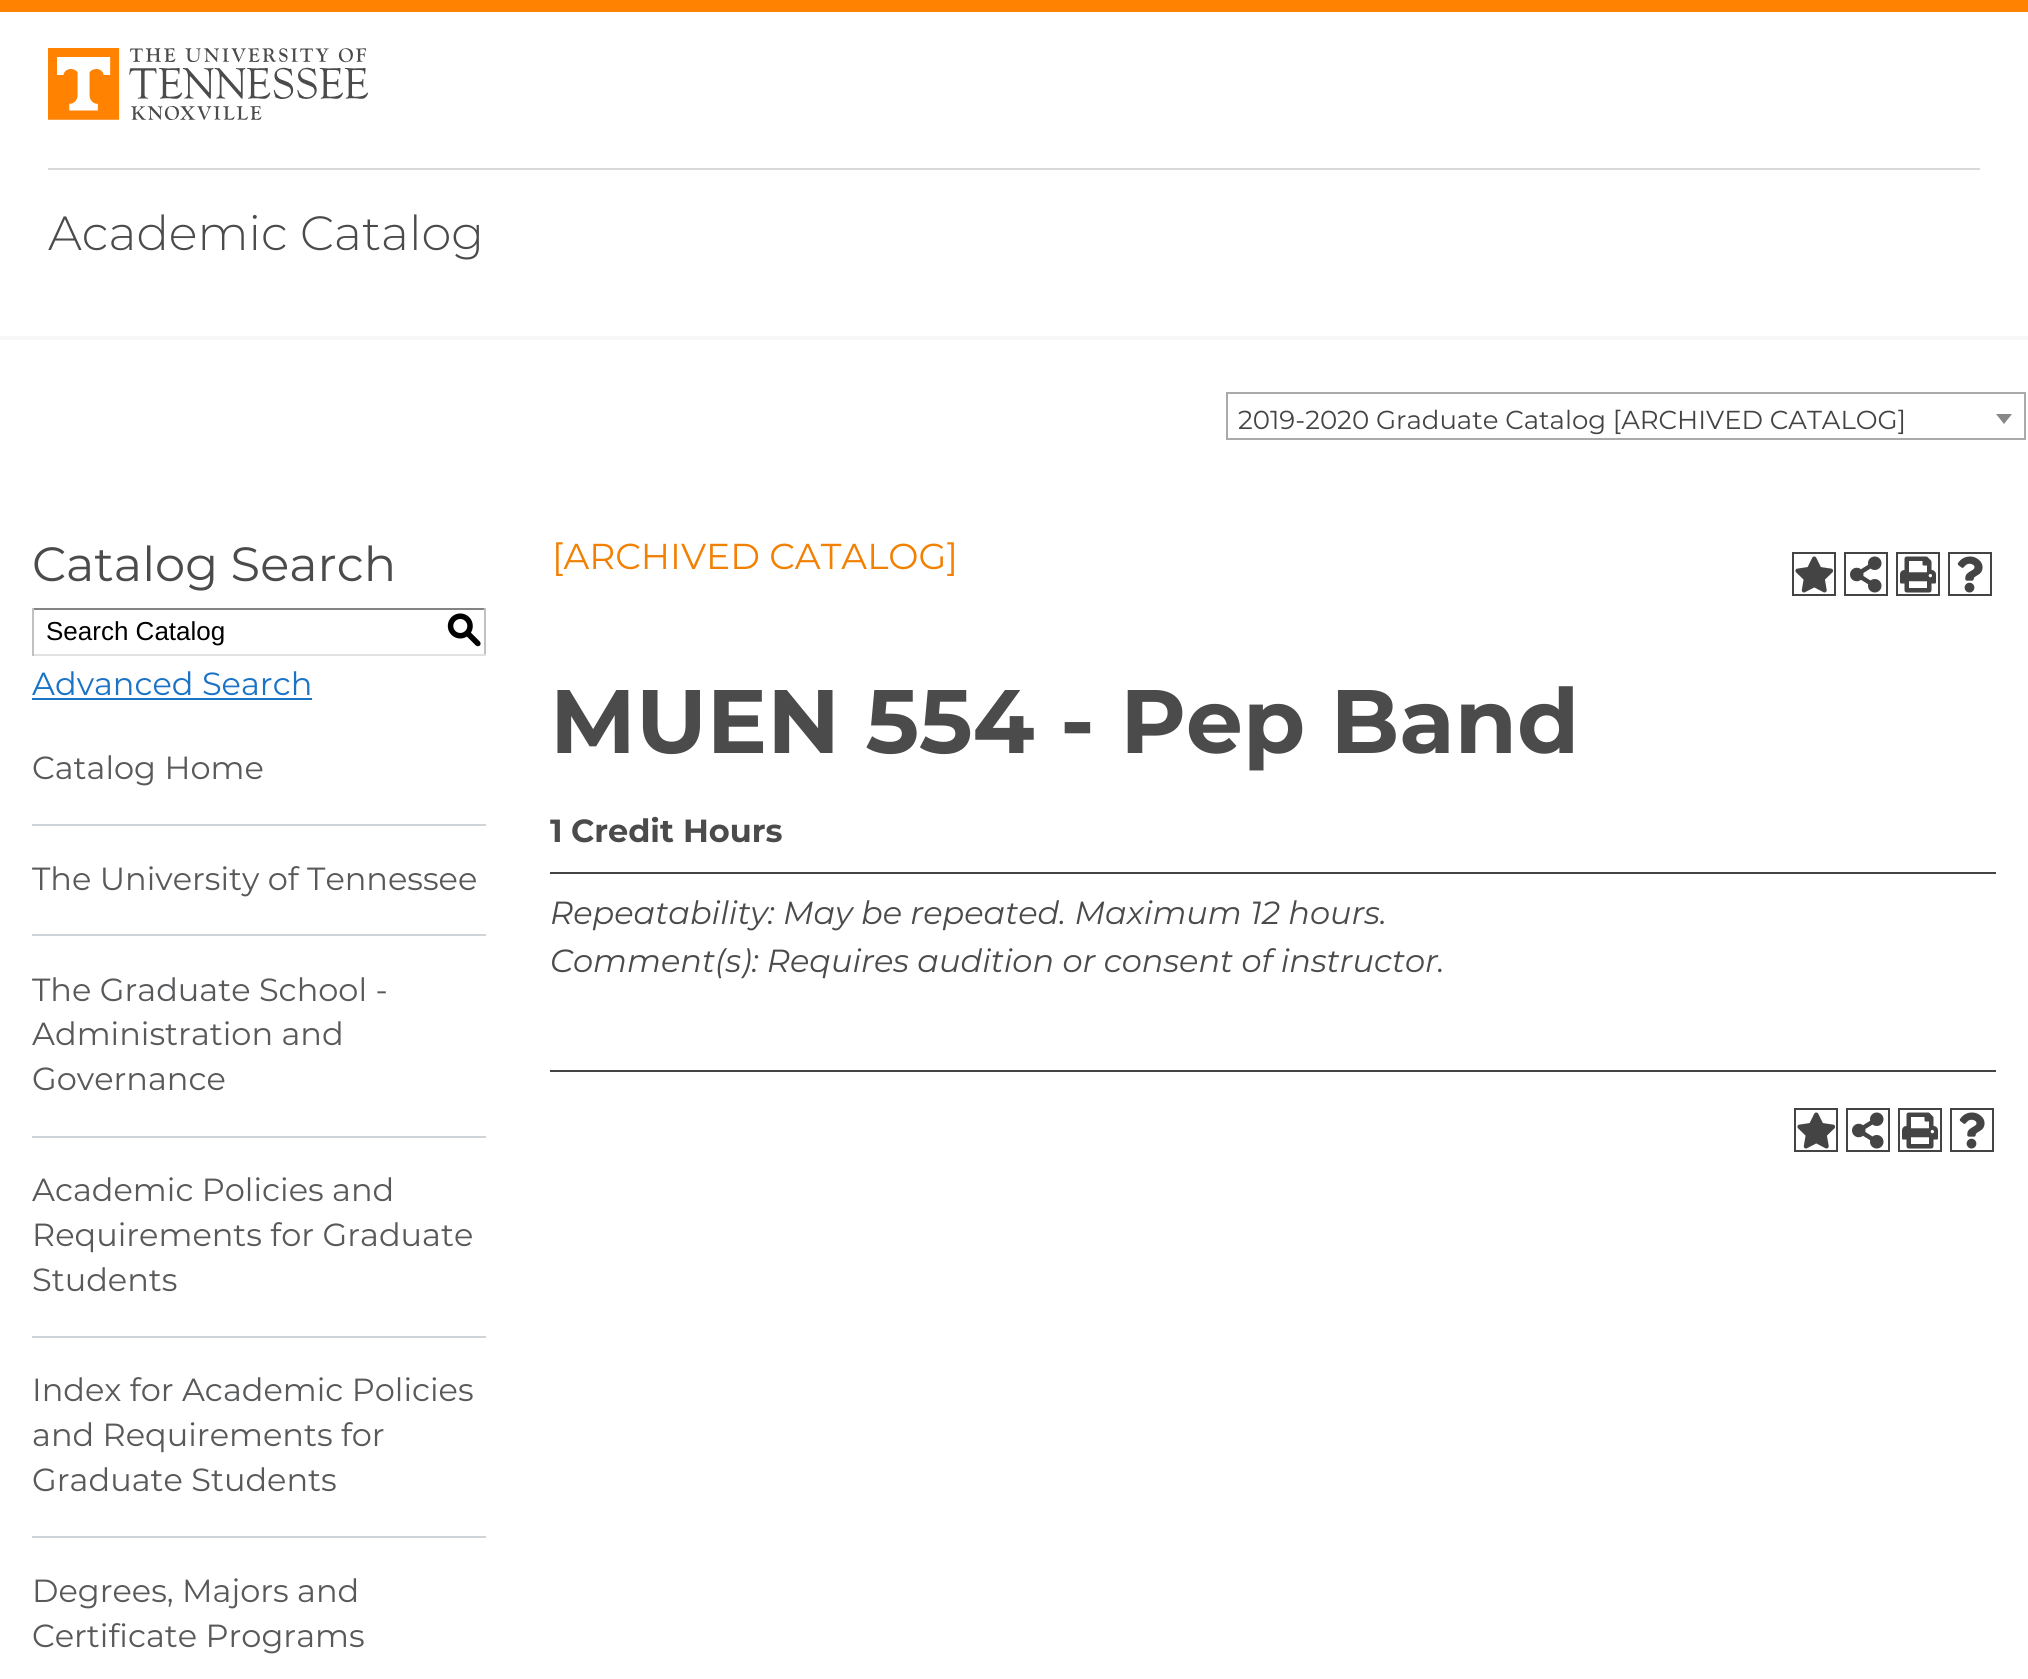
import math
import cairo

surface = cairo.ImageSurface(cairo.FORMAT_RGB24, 2028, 1679)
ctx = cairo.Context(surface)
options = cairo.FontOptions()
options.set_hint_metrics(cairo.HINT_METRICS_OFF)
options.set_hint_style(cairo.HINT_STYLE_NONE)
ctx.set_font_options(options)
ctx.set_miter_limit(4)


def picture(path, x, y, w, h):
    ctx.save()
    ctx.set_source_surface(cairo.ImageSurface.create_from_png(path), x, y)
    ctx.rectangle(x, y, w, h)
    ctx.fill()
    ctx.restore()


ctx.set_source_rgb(1, 1, 1)
ctx.paint()
ctx.set_source_rgb(1, 0.51, 0)
ctx.rectangle(0, 0, 2028, 12)
ctx.fill()
picture("img1.png", 48, 48, 320, 72)
ctx.set_source_rgb(0.851, 0.851, 0.851)
ctx.rectangle(48, 168, 1932, 2)
ctx.fill()
ctx.select_font_face("Montserrat Light")
ctx.set_font_size(48)
ctx.set_source_rgb(0.294, 0.294, 0.294)
ctx.move_to(48, 250)
ctx.show_text("Academic Catalog")
ctx.set_source_rgb(0.965, 0.965, 0.965)
ctx.rectangle(0, 336, 2028, 4)
ctx.fill()
ctx.rectangle(1227, 393, 798, 46)
ctx.set_source_rgb(0.667, 0.667, 0.667)
ctx.stroke()
ctx.select_font_face("Montserrat")
ctx.set_font_size(26)
ctx.set_source_rgb(0.267, 0.267, 0.267)
ctx.move_to(1238, 429)
ctx.show_text("2019-2020 Graduate Catalog [ARCHIVED CATALOG]")
ctx.set_source_rgb(0.533, 0.533, 0.533)
ctx.new_path()
ctx.move_to(1996, 414)
ctx.line_to(2012, 414)
ctx.line_to(2004, 424)
ctx.close_path()
ctx.fill()
ctx.set_font_size(48)
ctx.set_source_rgb(0.294, 0.294, 0.294)
ctx.move_to(32, 581)
ctx.show_text("Catalog Search")
ctx.set_source_rgb(0.518, 0.518, 0.518)
ctx.rectangle(32, 608, 454, 2)
ctx.fill()
ctx.set_source_rgb(0.757, 0.757, 0.757)
ctx.rectangle(484, 608, 2, 48)
ctx.fill()
ctx.set_source_rgb(0.882, 0.882, 0.882)
ctx.rectangle(32, 654, 454, 2)
ctx.fill()
ctx.set_source_rgb(0.757, 0.757, 0.757)
ctx.rectangle(32, 608, 2, 48)
ctx.fill()
ctx.select_font_face("Liberation Sans")
ctx.set_font_size(26)
ctx.set_source_rgb(0, 0, 0)
ctx.move_to(46, 640)
ctx.show_text("Search Catalog")
ctx.select_font_face("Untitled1 Medium")
ctx.set_font_size(36)
ctx.move_to(446, 641)
ctx.show_text("S")
ctx.select_font_face("Montserrat")
ctx.set_font_size(32)
ctx.set_source_rgb(0.102, 0.451, 0.773)
ctx.move_to(32, 695)
ctx.show_text("Advanced Search")
ctx.rectangle(32, 698, 280, 2)
ctx.fill()
ctx.set_source_rgb(0.808, 0.831, 0.855)
ctx.rectangle(32, 824, 454, 2)
ctx.fill()
ctx.set_source_rgb(0.345, 0.349, 0.357)
ctx.move_to(32, 779)
ctx.show_text("Catalog Home")
ctx.set_source_rgb(0.808, 0.831, 0.855)
ctx.rectangle(32, 934, 454, 2)
ctx.fill()
ctx.set_source_rgb(0.345, 0.349, 0.357)
ctx.move_to(32, 890)
ctx.show_text("The University of Tennessee")
ctx.set_source_rgb(0.808, 0.831, 0.855)
ctx.rectangle(32, 1136, 454, 2)
ctx.fill()
ctx.set_source_rgb(0.345, 0.349, 0.357)
ctx.move_to(32, 1001)
ctx.show_text("The Graduate School -")
ctx.move_to(32, 1045)
ctx.show_text("Administration and")
ctx.move_to(32, 1090)
ctx.show_text("Governance")
ctx.set_source_rgb(0.808, 0.831, 0.855)
ctx.rectangle(32, 1336, 454, 2)
ctx.fill()
ctx.set_source_rgb(0.345, 0.349, 0.357)
ctx.move_to(32, 1201)
ctx.show_text("Academic Policies and")
ctx.move_to(32, 1246)
ctx.show_text("Requirements for Graduate")
ctx.move_to(32, 1291)
ctx.show_text("Students")
ctx.set_source_rgb(0.808, 0.831, 0.855)
ctx.rectangle(32, 1536, 454, 2)
ctx.fill()
ctx.set_source_rgb(0.345, 0.349, 0.357)
ctx.move_to(32, 1401)
ctx.show_text("Index for Academic Policies")
ctx.move_to(32, 1446)
ctx.show_text("and Requirements for")
ctx.move_to(32, 1491)
ctx.show_text("Graduate Students")
ctx.move_to(32, 1602)
ctx.show_text("Degrees, Majors and")
ctx.move_to(32, 1647)
ctx.show_text("Certificate Programs")
ctx.set_font_size(36)
ctx.set_source_rgb(0.949, 0.502, 0.012)
ctx.move_to(552, 569)
ctx.show_text("[ARCHIVED CATALOG]")
ctx.rectangle(1793, 553, 42, 42)
ctx.set_source_rgb(0.267, 0.267, 0.267)
ctx.stroke()
picture("img2.png", 1795, 556, 39, 37)
ctx.rectangle(1845, 553, 42, 42)
ctx.stroke()
picture("img3.png", 1850, 556, 32, 37)
ctx.rectangle(1897, 553, 42, 42)
ctx.stroke()
picture("img4.png", 1900, 556, 36, 37)
ctx.rectangle(1949, 553, 42, 42)
ctx.stroke()
picture("img5.png", 1957, 556, 26, 37)
ctx.select_font_face("Montserrat", cairo.FONT_SLANT_NORMAL, cairo.FONT_WEIGHT_BOLD)
ctx.set_font_size(90)
ctx.set_source_rgb(0.294, 0.294, 0.294)
ctx.move_to(550, 753)
ctx.show_text("MUEN 554 - Pep Band")
ctx.set_font_size(32)
ctx.move_to(550, 842)
ctx.show_text("1")
ctx.move_to(571, 842)
ctx.show_text("Credit Hours")
ctx.set_source_rgb(0.267, 0.267, 0.267)
ctx.rectangle(550, 872, 1446, 2)
ctx.fill()
ctx.select_font_face("Montserrat", cairo.FONT_SLANT_ITALIC)
ctx.set_source_rgb(0.294, 0.294, 0.294)
ctx.move_to(550, 924)
ctx.show_text("Repeatability: May be repeated. Maximum 12 hours.")
ctx.move_to(550, 972)
ctx.show_text("Comment(s): Requires audition or consent of instructor.")
ctx.set_source_rgb(0.267, 0.267, 0.267)
ctx.rectangle(550, 1070, 1446, 2)
ctx.fill()
ctx.rectangle(1795, 1109, 42, 42)
ctx.stroke()
picture("img2.png", 1797, 1112, 39, 37)
ctx.rectangle(1847, 1109, 42, 42)
ctx.stroke()
picture("img3.png", 1852, 1112, 32, 37)
ctx.rectangle(1899, 1109, 42, 42)
ctx.stroke()
picture("img4.png", 1902, 1112, 36, 37)
ctx.rectangle(1951, 1109, 42, 42)
ctx.stroke()
picture("img5.png", 1959, 1112, 26, 37)
surface.write_to_png("page.png")
